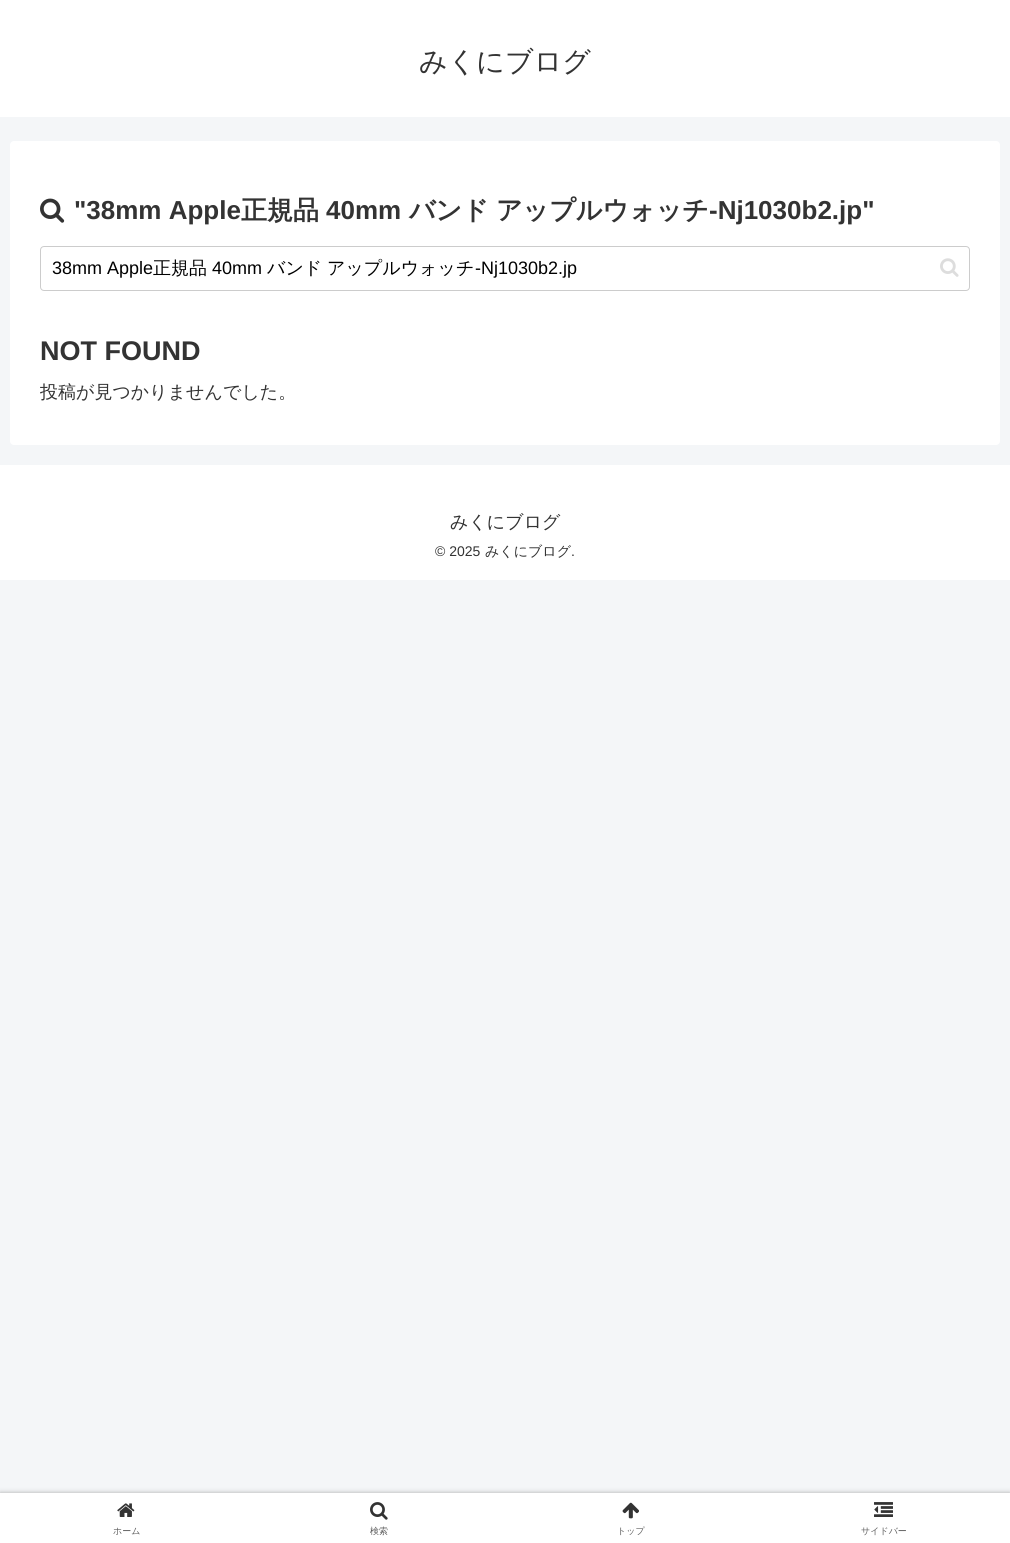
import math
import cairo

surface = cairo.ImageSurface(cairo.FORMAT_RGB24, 1010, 1543)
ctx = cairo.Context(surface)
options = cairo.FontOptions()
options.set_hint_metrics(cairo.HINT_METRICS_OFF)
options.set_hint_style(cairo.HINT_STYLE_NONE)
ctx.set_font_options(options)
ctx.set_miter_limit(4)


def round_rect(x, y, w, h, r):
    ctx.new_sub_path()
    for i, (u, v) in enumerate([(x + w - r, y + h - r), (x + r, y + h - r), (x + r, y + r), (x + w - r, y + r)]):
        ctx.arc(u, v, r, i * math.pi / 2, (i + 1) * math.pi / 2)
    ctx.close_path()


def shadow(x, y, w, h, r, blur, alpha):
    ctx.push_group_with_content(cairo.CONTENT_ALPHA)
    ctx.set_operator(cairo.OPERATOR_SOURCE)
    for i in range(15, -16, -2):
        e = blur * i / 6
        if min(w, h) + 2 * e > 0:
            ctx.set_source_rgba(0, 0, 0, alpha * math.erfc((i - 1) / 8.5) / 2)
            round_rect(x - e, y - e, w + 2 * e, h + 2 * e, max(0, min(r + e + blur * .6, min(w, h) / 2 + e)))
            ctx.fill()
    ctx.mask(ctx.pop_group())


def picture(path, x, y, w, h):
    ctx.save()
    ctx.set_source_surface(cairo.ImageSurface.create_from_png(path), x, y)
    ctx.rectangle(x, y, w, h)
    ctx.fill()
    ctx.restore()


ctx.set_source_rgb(0.957, 0.961, 0.969)
ctx.paint()
ctx.set_source_rgb(1, 1, 1)
ctx.rectangle(0, 0, 1010, 117)
ctx.fill()
ctx.select_font_face("WenQuanYi Zen Hei Medium")
ctx.set_font_size(28)
ctx.set_source_rgb(0.2, 0.2, 0.2)
ctx.move_to(419, 71)
ctx.show_text("みくにブログ")
ctx.set_source_rgb(1, 1, 1)
round_rect(10, 141, 990, 304, 4)
ctx.fill()
picture("img1.png", 40, 198, 25, 25)
ctx.select_font_face("Liberation Sans", cairo.FONT_SLANT_NORMAL, cairo.FONT_WEIGHT_BOLD)
ctx.set_font_size(26)
ctx.set_source_rgb(0.2, 0.2, 0.2)
ctx.move_to(74, 219)
ctx.show_text("\"38mm Apple")
ctx.select_font_face("WenQuanYi Zen Hei", cairo.FONT_SLANT_NORMAL, cairo.FONT_WEIGHT_BOLD)
ctx.move_to(241, 219)
ctx.show_text("正規品")
ctx.select_font_face("Liberation Sans", cairo.FONT_SLANT_NORMAL, cairo.FONT_WEIGHT_BOLD)
ctx.move_to(326, 219)
ctx.show_text("40mm")
ctx.select_font_face("WenQuanYi Zen Hei", cairo.FONT_SLANT_NORMAL, cairo.FONT_WEIGHT_BOLD)
ctx.move_to(409, 219)
ctx.show_text("バンド")
ctx.move_to(496, 219)
ctx.show_text("アップルウォッチ")
ctx.select_font_face("Liberation Sans", cairo.FONT_SLANT_NORMAL, cairo.FONT_WEIGHT_BOLD)
ctx.move_to(709, 219)
ctx.show_text("-Nj1030b2.jp\"")
round_rect(40.5, 246.5, 929, 44, 3.5)
ctx.set_source_rgb(0.8, 0.8, 0.8)
ctx.set_line_width(1)
ctx.stroke()
ctx.select_font_face("Liberation Sans")
ctx.set_font_size(18)
ctx.set_source_rgb(0, 0, 0)
ctx.move_to(52, 274)
ctx.show_text("38mm Apple")
ctx.select_font_face("WenQuanYi Zen Hei Medium")
ctx.move_to(153, 274)
ctx.show_text("正規品")
ctx.select_font_face("Liberation Sans")
ctx.move_to(212, 274)
ctx.show_text("40mm")
ctx.select_font_face("WenQuanYi Zen Hei Medium")
ctx.move_to(267, 274)
ctx.show_text("バンド")
ctx.move_to(327, 274)
ctx.show_text("アップルウォッチ")
ctx.select_font_face("Liberation Sans")
ctx.move_to(475, 274)
ctx.show_text("-Nj1030b2.jp")
picture("img2.png", 940, 258, 19, 19)
ctx.select_font_face("Liberation Sans", cairo.FONT_SLANT_NORMAL, cairo.FONT_WEIGHT_BOLD)
ctx.set_font_size(27)
ctx.set_source_rgb(0.2, 0.2, 0.2)
ctx.move_to(40, 360)
ctx.show_text("NOT FOUND")
ctx.select_font_face("WenQuanYi Zen Hei Medium")
ctx.set_font_size(18)
ctx.move_to(40, 398)
ctx.show_text("投稿が見つかりませんでした。")
ctx.set_source_rgb(1, 1, 1)
ctx.rectangle(0, 465, 1010, 115)
ctx.fill()
ctx.set_source_rgb(0.2, 0.2, 0.2)
ctx.move_to(450, 528)
ctx.show_text("みくにブログ")
ctx.select_font_face("Liberation Sans")
ctx.set_font_size(14)
ctx.move_to(435, 556)
ctx.show_text("© 2025")
ctx.select_font_face("WenQuanYi Zen Hei Medium")
ctx.move_to(485, 556)
ctx.show_text("みくにブログ")
ctx.select_font_face("Liberation Sans")
ctx.move_to(571, 556)
ctx.show_text(".")
ctx.set_source_rgb(0.663, 0.663, 0.663)
shadow(0, 1493, 1010, 50, 0, 2.5, 1)
ctx.set_source_rgb(1, 1, 1)
ctx.rectangle(0, 1493, 1010, 50)
ctx.fill()
picture("img3.png", 117, 1503, 18, 14)
ctx.select_font_face("WenQuanYi Zen Hei Medium")
ctx.set_font_size(9)
ctx.set_source_rgb(0.361, 0.361, 0.361)
ctx.move_to(113, 1534)
ctx.show_text("ホーム")
picture("img4.png", 370, 1502, 18, 18)
ctx.move_to(370, 1534)
ctx.show_text("検索")
picture("img5.png", 622, 1502, 17, 17)
ctx.move_to(617, 1534)
ctx.show_text("トップ")
picture("img6.png", 874, 1502, 19, 15)
ctx.move_to(861, 1534)
ctx.show_text("サイドバー")
surface.write_to_png("page.png")
